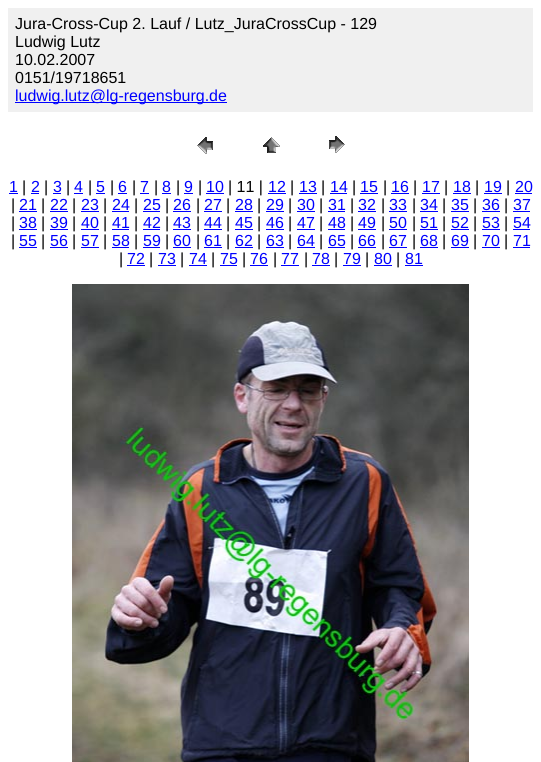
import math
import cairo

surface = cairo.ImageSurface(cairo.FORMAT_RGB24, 541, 762)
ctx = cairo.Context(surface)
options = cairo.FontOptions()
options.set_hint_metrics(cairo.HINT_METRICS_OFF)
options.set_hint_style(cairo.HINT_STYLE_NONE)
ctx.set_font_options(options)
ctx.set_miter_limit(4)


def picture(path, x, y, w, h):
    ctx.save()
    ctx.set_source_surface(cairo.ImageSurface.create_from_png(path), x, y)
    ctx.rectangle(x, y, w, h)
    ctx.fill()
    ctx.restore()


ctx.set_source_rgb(1, 1, 1)
ctx.paint()
ctx.set_source_rgb(0.941, 0.941, 0.941)
ctx.rectangle(8, 8, 525, 104)
ctx.fill()
ctx.select_font_face("Liberation Sans")
ctx.set_font_size(16)
ctx.set_source_rgb(0, 0, 0)
ctx.move_to(15, 29)
ctx.show_text("Jura-Cross-Cup 2. Lauf / Lutz_JuraCrossCup - 129")
ctx.move_to(15, 47)
ctx.show_text("Ludwig Lutz")
ctx.move_to(15, 65)
ctx.show_text("10.02.2007")
ctx.move_to(15, 83)
ctx.show_text("0151/19718651")
ctx.set_source_rgb(0, 0, 1)
ctx.rectangle(15, 102, 212, 1)
ctx.fill()
ctx.move_to(15, 101)
ctx.show_text("ludwig.lutz@lg-regensburg.de")
picture("img1.png", 197, 137, 16, 17)
picture("img2.png", 263, 137, 17, 16)
picture("img3.png", 329, 136, 16, 17)
ctx.move_to(9, 192)
ctx.show_text("1")
ctx.rectangle(9, 193, 9, 1)
ctx.fill()
ctx.set_source_rgb(0, 0, 0)
ctx.move_to(22, 192)
ctx.show_text("|")
ctx.set_source_rgb(0, 0, 1)
ctx.move_to(31, 192)
ctx.show_text("2")
ctx.rectangle(31, 193, 8, 1)
ctx.fill()
ctx.set_source_rgb(0, 0, 0)
ctx.move_to(44, 192)
ctx.show_text("|")
ctx.set_source_rgb(0, 0, 1)
ctx.move_to(53, 192)
ctx.show_text("3")
ctx.rectangle(53, 193, 8, 1)
ctx.fill()
ctx.set_source_rgb(0, 0, 0)
ctx.move_to(66, 192)
ctx.show_text("|")
ctx.set_source_rgb(0, 0, 1)
ctx.move_to(74, 192)
ctx.show_text("4")
ctx.rectangle(74, 193, 9, 1)
ctx.fill()
ctx.set_source_rgb(0, 0, 0)
ctx.move_to(88, 192)
ctx.show_text("|")
ctx.set_source_rgb(0, 0, 1)
ctx.move_to(96, 192)
ctx.show_text("5")
ctx.rectangle(96, 193, 9, 1)
ctx.fill()
ctx.set_source_rgb(0, 0, 0)
ctx.move_to(110, 192)
ctx.show_text("|")
ctx.set_source_rgb(0, 0, 1)
ctx.move_to(118, 192)
ctx.show_text("6")
ctx.rectangle(118, 193, 9, 1)
ctx.fill()
ctx.set_source_rgb(0, 0, 0)
ctx.move_to(132, 192)
ctx.show_text("|")
ctx.set_source_rgb(0, 0, 1)
ctx.move_to(140, 192)
ctx.show_text("7")
ctx.rectangle(140, 193, 9, 1)
ctx.fill()
ctx.set_source_rgb(0, 0, 0)
ctx.move_to(154, 192)
ctx.show_text("|")
ctx.set_source_rgb(0, 0, 1)
ctx.move_to(162, 192)
ctx.show_text("8")
ctx.rectangle(162, 193, 9, 1)
ctx.fill()
ctx.set_source_rgb(0, 0, 0)
ctx.move_to(176, 192)
ctx.show_text("|")
ctx.set_source_rgb(0, 0, 1)
ctx.move_to(184, 192)
ctx.show_text("9")
ctx.rectangle(184, 193, 9, 1)
ctx.fill()
ctx.set_source_rgb(0, 0, 0)
ctx.move_to(198, 192)
ctx.show_text("|")
ctx.set_source_rgb(0, 0, 1)
ctx.move_to(206, 192)
ctx.show_text("10")
ctx.rectangle(206, 193, 18, 1)
ctx.fill()
ctx.set_source_rgb(0, 0, 0)
ctx.move_to(228, 192)
ctx.show_text("| 11 |")
ctx.set_source_rgb(0, 0, 1)
ctx.move_to(268, 192)
ctx.show_text("12")
ctx.rectangle(268, 193, 18, 1)
ctx.fill()
ctx.set_source_rgb(0, 0, 0)
ctx.move_to(290, 192)
ctx.show_text("|")
ctx.set_source_rgb(0, 0, 1)
ctx.move_to(299, 192)
ctx.show_text("13")
ctx.rectangle(299, 193, 18, 1)
ctx.fill()
ctx.set_source_rgb(0, 0, 0)
ctx.move_to(321, 192)
ctx.show_text("|")
ctx.set_source_rgb(0, 0, 1)
ctx.move_to(330, 192)
ctx.show_text("14")
ctx.rectangle(330, 193, 17, 1)
ctx.fill()
ctx.set_source_rgb(0, 0, 0)
ctx.move_to(352, 192)
ctx.show_text("|")
ctx.set_source_rgb(0, 0, 1)
ctx.move_to(360, 192)
ctx.show_text("15")
ctx.rectangle(360, 193, 18, 1)
ctx.fill()
ctx.set_source_rgb(0, 0, 0)
ctx.move_to(383, 192)
ctx.show_text("|")
ctx.set_source_rgb(0, 0, 1)
ctx.move_to(391, 192)
ctx.show_text("16")
ctx.rectangle(391, 193, 18, 1)
ctx.fill()
ctx.set_source_rgb(0, 0, 0)
ctx.move_to(413, 192)
ctx.show_text("|")
ctx.set_source_rgb(0, 0, 1)
ctx.move_to(422, 192)
ctx.show_text("17")
ctx.rectangle(422, 193, 18, 1)
ctx.fill()
ctx.set_source_rgb(0, 0, 0)
ctx.move_to(444, 192)
ctx.show_text("|")
ctx.set_source_rgb(0, 0, 1)
ctx.move_to(453, 192)
ctx.show_text("18")
ctx.rectangle(453, 193, 18, 1)
ctx.fill()
ctx.set_source_rgb(0, 0, 0)
ctx.move_to(475, 192)
ctx.show_text("|")
ctx.set_source_rgb(0, 0, 1)
ctx.move_to(484, 192)
ctx.show_text("19")
ctx.rectangle(484, 193, 18, 1)
ctx.fill()
ctx.set_source_rgb(0, 0, 0)
ctx.move_to(506, 192)
ctx.show_text("|")
ctx.set_source_rgb(0, 0, 1)
ctx.move_to(515, 192)
ctx.show_text("20")
ctx.rectangle(515, 193, 17, 1)
ctx.fill()
ctx.set_source_rgb(0, 0, 0)
ctx.move_to(11, 210)
ctx.show_text("|")
ctx.set_source_rgb(0, 0, 1)
ctx.move_to(19, 210)
ctx.show_text("21")
ctx.rectangle(19, 211, 18, 1)
ctx.fill()
ctx.set_source_rgb(0, 0, 0)
ctx.move_to(41, 210)
ctx.show_text("|")
ctx.set_source_rgb(0, 0, 1)
ctx.move_to(50, 210)
ctx.show_text("22")
ctx.rectangle(50, 211, 18, 1)
ctx.fill()
ctx.set_source_rgb(0, 0, 0)
ctx.move_to(72, 210)
ctx.show_text("|")
ctx.set_source_rgb(0, 0, 1)
ctx.move_to(81, 210)
ctx.show_text("23")
ctx.rectangle(81, 211, 18, 1)
ctx.fill()
ctx.set_source_rgb(0, 0, 0)
ctx.move_to(103, 210)
ctx.show_text("|")
ctx.set_source_rgb(0, 0, 1)
ctx.move_to(112, 210)
ctx.show_text("24")
ctx.rectangle(112, 211, 17, 1)
ctx.fill()
ctx.set_source_rgb(0, 0, 0)
ctx.move_to(134, 210)
ctx.show_text("|")
ctx.set_source_rgb(0, 0, 1)
ctx.move_to(143, 210)
ctx.show_text("25")
ctx.rectangle(143, 211, 17, 1)
ctx.fill()
ctx.set_source_rgb(0, 0, 0)
ctx.move_to(165, 210)
ctx.show_text("|")
ctx.set_source_rgb(0, 0, 1)
ctx.move_to(173, 210)
ctx.show_text("26")
ctx.rectangle(173, 211, 18, 1)
ctx.fill()
ctx.set_source_rgb(0, 0, 0)
ctx.move_to(196, 210)
ctx.show_text("|")
ctx.set_source_rgb(0, 0, 1)
ctx.move_to(204, 210)
ctx.show_text("27")
ctx.rectangle(204, 211, 18, 1)
ctx.fill()
ctx.set_source_rgb(0, 0, 0)
ctx.move_to(226, 210)
ctx.show_text("|")
ctx.set_source_rgb(0, 0, 1)
ctx.move_to(235, 210)
ctx.show_text("28")
ctx.rectangle(235, 211, 18, 1)
ctx.fill()
ctx.set_source_rgb(0, 0, 0)
ctx.move_to(257, 210)
ctx.show_text("|")
ctx.set_source_rgb(0, 0, 1)
ctx.move_to(266, 210)
ctx.show_text("29")
ctx.rectangle(266, 211, 18, 1)
ctx.fill()
ctx.set_source_rgb(0, 0, 0)
ctx.move_to(288, 210)
ctx.show_text("|")
ctx.set_source_rgb(0, 0, 1)
ctx.move_to(297, 210)
ctx.show_text("30")
ctx.rectangle(297, 211, 18, 1)
ctx.fill()
ctx.set_source_rgb(0, 0, 0)
ctx.move_to(319, 210)
ctx.show_text("|")
ctx.set_source_rgb(0, 0, 1)
ctx.move_to(328, 210)
ctx.show_text("31")
ctx.rectangle(328, 211, 17, 1)
ctx.fill()
ctx.set_source_rgb(0, 0, 0)
ctx.move_to(350, 210)
ctx.show_text("|")
ctx.set_source_rgb(0, 0, 1)
ctx.move_to(358, 210)
ctx.show_text("32")
ctx.rectangle(358, 211, 18, 1)
ctx.fill()
ctx.set_source_rgb(0, 0, 0)
ctx.move_to(381, 210)
ctx.show_text("|")
ctx.set_source_rgb(0, 0, 1)
ctx.move_to(389, 210)
ctx.show_text("33")
ctx.rectangle(389, 211, 18, 1)
ctx.fill()
ctx.set_source_rgb(0, 0, 0)
ctx.move_to(412, 210)
ctx.show_text("|")
ctx.set_source_rgb(0, 0, 1)
ctx.move_to(420, 210)
ctx.show_text("34")
ctx.rectangle(420, 211, 18, 1)
ctx.fill()
ctx.set_source_rgb(0, 0, 0)
ctx.move_to(442, 210)
ctx.show_text("|")
ctx.set_source_rgb(0, 0, 1)
ctx.move_to(451, 210)
ctx.show_text("35")
ctx.rectangle(451, 211, 18, 1)
ctx.fill()
ctx.set_source_rgb(0, 0, 0)
ctx.move_to(473, 210)
ctx.show_text("|")
ctx.set_source_rgb(0, 0, 1)
ctx.move_to(482, 210)
ctx.show_text("36")
ctx.rectangle(482, 211, 18, 1)
ctx.fill()
ctx.set_source_rgb(0, 0, 0)
ctx.move_to(504, 210)
ctx.show_text("|")
ctx.set_source_rgb(0, 0, 1)
ctx.move_to(513, 210)
ctx.show_text("37")
ctx.rectangle(513, 211, 17, 1)
ctx.fill()
ctx.set_source_rgb(0, 0, 0)
ctx.move_to(11, 228)
ctx.show_text("|")
ctx.set_source_rgb(0, 0, 1)
ctx.move_to(19, 228)
ctx.show_text("38")
ctx.rectangle(19, 229, 18, 1)
ctx.fill()
ctx.set_source_rgb(0, 0, 0)
ctx.move_to(41, 228)
ctx.show_text("|")
ctx.set_source_rgb(0, 0, 1)
ctx.move_to(50, 228)
ctx.show_text("39")
ctx.rectangle(50, 229, 18, 1)
ctx.fill()
ctx.set_source_rgb(0, 0, 0)
ctx.move_to(72, 228)
ctx.show_text("|")
ctx.set_source_rgb(0, 0, 1)
ctx.move_to(81, 228)
ctx.show_text("40")
ctx.rectangle(81, 229, 18, 1)
ctx.fill()
ctx.set_source_rgb(0, 0, 0)
ctx.move_to(103, 228)
ctx.show_text("|")
ctx.set_source_rgb(0, 0, 1)
ctx.move_to(112, 228)
ctx.show_text("41")
ctx.rectangle(112, 229, 17, 1)
ctx.fill()
ctx.set_source_rgb(0, 0, 0)
ctx.move_to(134, 228)
ctx.show_text("|")
ctx.set_source_rgb(0, 0, 1)
ctx.move_to(143, 228)
ctx.show_text("42")
ctx.rectangle(143, 229, 17, 1)
ctx.fill()
ctx.set_source_rgb(0, 0, 0)
ctx.move_to(165, 228)
ctx.show_text("|")
ctx.set_source_rgb(0, 0, 1)
ctx.move_to(173, 228)
ctx.show_text("43")
ctx.rectangle(173, 229, 18, 1)
ctx.fill()
ctx.set_source_rgb(0, 0, 0)
ctx.move_to(196, 228)
ctx.show_text("|")
ctx.set_source_rgb(0, 0, 1)
ctx.move_to(204, 228)
ctx.show_text("44")
ctx.rectangle(204, 229, 18, 1)
ctx.fill()
ctx.set_source_rgb(0, 0, 0)
ctx.move_to(226, 228)
ctx.show_text("|")
ctx.set_source_rgb(0, 0, 1)
ctx.move_to(235, 228)
ctx.show_text("45")
ctx.rectangle(235, 229, 18, 1)
ctx.fill()
ctx.set_source_rgb(0, 0, 0)
ctx.move_to(257, 228)
ctx.show_text("|")
ctx.set_source_rgb(0, 0, 1)
ctx.move_to(266, 228)
ctx.show_text("46")
ctx.rectangle(266, 229, 18, 1)
ctx.fill()
ctx.set_source_rgb(0, 0, 0)
ctx.move_to(288, 228)
ctx.show_text("|")
ctx.set_source_rgb(0, 0, 1)
ctx.move_to(297, 228)
ctx.show_text("47")
ctx.rectangle(297, 229, 18, 1)
ctx.fill()
ctx.set_source_rgb(0, 0, 0)
ctx.move_to(319, 228)
ctx.show_text("|")
ctx.set_source_rgb(0, 0, 1)
ctx.move_to(328, 228)
ctx.show_text("48")
ctx.rectangle(328, 229, 17, 1)
ctx.fill()
ctx.set_source_rgb(0, 0, 0)
ctx.move_to(350, 228)
ctx.show_text("|")
ctx.set_source_rgb(0, 0, 1)
ctx.move_to(358, 228)
ctx.show_text("49")
ctx.rectangle(358, 229, 18, 1)
ctx.fill()
ctx.set_source_rgb(0, 0, 0)
ctx.move_to(381, 228)
ctx.show_text("|")
ctx.set_source_rgb(0, 0, 1)
ctx.move_to(389, 228)
ctx.show_text("50")
ctx.rectangle(389, 229, 18, 1)
ctx.fill()
ctx.set_source_rgb(0, 0, 0)
ctx.move_to(412, 228)
ctx.show_text("|")
ctx.set_source_rgb(0, 0, 1)
ctx.move_to(420, 228)
ctx.show_text("51")
ctx.rectangle(420, 229, 18, 1)
ctx.fill()
ctx.set_source_rgb(0, 0, 0)
ctx.move_to(442, 228)
ctx.show_text("|")
ctx.set_source_rgb(0, 0, 1)
ctx.move_to(451, 228)
ctx.show_text("52")
ctx.rectangle(451, 229, 18, 1)
ctx.fill()
ctx.set_source_rgb(0, 0, 0)
ctx.move_to(473, 228)
ctx.show_text("|")
ctx.set_source_rgb(0, 0, 1)
ctx.move_to(482, 228)
ctx.show_text("53")
ctx.rectangle(482, 229, 18, 1)
ctx.fill()
ctx.set_source_rgb(0, 0, 0)
ctx.move_to(504, 228)
ctx.show_text("|")
ctx.set_source_rgb(0, 0, 1)
ctx.move_to(513, 228)
ctx.show_text("54")
ctx.rectangle(513, 229, 17, 1)
ctx.fill()
ctx.set_source_rgb(0, 0, 0)
ctx.move_to(11, 246)
ctx.show_text("|")
ctx.set_source_rgb(0, 0, 1)
ctx.move_to(19, 246)
ctx.show_text("55")
ctx.rectangle(19, 247, 18, 1)
ctx.fill()
ctx.set_source_rgb(0, 0, 0)
ctx.move_to(41, 246)
ctx.show_text("|")
ctx.set_source_rgb(0, 0, 1)
ctx.move_to(50, 246)
ctx.show_text("56")
ctx.rectangle(50, 247, 18, 1)
ctx.fill()
ctx.set_source_rgb(0, 0, 0)
ctx.move_to(72, 246)
ctx.show_text("|")
ctx.set_source_rgb(0, 0, 1)
ctx.move_to(81, 246)
ctx.show_text("57")
ctx.rectangle(81, 247, 18, 1)
ctx.fill()
ctx.set_source_rgb(0, 0, 0)
ctx.move_to(103, 246)
ctx.show_text("|")
ctx.set_source_rgb(0, 0, 1)
ctx.move_to(112, 246)
ctx.show_text("58")
ctx.rectangle(112, 247, 17, 1)
ctx.fill()
ctx.set_source_rgb(0, 0, 0)
ctx.move_to(134, 246)
ctx.show_text("|")
ctx.set_source_rgb(0, 0, 1)
ctx.move_to(143, 246)
ctx.show_text("59")
ctx.rectangle(143, 247, 17, 1)
ctx.fill()
ctx.set_source_rgb(0, 0, 0)
ctx.move_to(165, 246)
ctx.show_text("|")
ctx.set_source_rgb(0, 0, 1)
ctx.move_to(173, 246)
ctx.show_text("60")
ctx.rectangle(173, 247, 18, 1)
ctx.fill()
ctx.set_source_rgb(0, 0, 0)
ctx.move_to(196, 246)
ctx.show_text("|")
ctx.set_source_rgb(0, 0, 1)
ctx.move_to(204, 246)
ctx.show_text("61")
ctx.rectangle(204, 247, 18, 1)
ctx.fill()
ctx.set_source_rgb(0, 0, 0)
ctx.move_to(226, 246)
ctx.show_text("|")
ctx.set_source_rgb(0, 0, 1)
ctx.move_to(235, 246)
ctx.show_text("62")
ctx.rectangle(235, 247, 18, 1)
ctx.fill()
ctx.set_source_rgb(0, 0, 0)
ctx.move_to(257, 246)
ctx.show_text("|")
ctx.set_source_rgb(0, 0, 1)
ctx.move_to(266, 246)
ctx.show_text("63")
ctx.rectangle(266, 247, 18, 1)
ctx.fill()
ctx.set_source_rgb(0, 0, 0)
ctx.move_to(288, 246)
ctx.show_text("|")
ctx.set_source_rgb(0, 0, 1)
ctx.move_to(297, 246)
ctx.show_text("64")
ctx.rectangle(297, 247, 18, 1)
ctx.fill()
ctx.set_source_rgb(0, 0, 0)
ctx.move_to(319, 246)
ctx.show_text("|")
ctx.set_source_rgb(0, 0, 1)
ctx.move_to(328, 246)
ctx.show_text("65")
ctx.rectangle(328, 247, 17, 1)
ctx.fill()
ctx.set_source_rgb(0, 0, 0)
ctx.move_to(350, 246)
ctx.show_text("|")
ctx.set_source_rgb(0, 0, 1)
ctx.move_to(358, 246)
ctx.show_text("66")
ctx.rectangle(358, 247, 18, 1)
ctx.fill()
ctx.set_source_rgb(0, 0, 0)
ctx.move_to(381, 246)
ctx.show_text("|")
ctx.set_source_rgb(0, 0, 1)
ctx.move_to(389, 246)
ctx.show_text("67")
ctx.rectangle(389, 247, 18, 1)
ctx.fill()
ctx.set_source_rgb(0, 0, 0)
ctx.move_to(412, 246)
ctx.show_text("|")
ctx.set_source_rgb(0, 0, 1)
ctx.move_to(420, 246)
ctx.show_text("68")
ctx.rectangle(420, 247, 18, 1)
ctx.fill()
ctx.set_source_rgb(0, 0, 0)
ctx.move_to(442, 246)
ctx.show_text("|")
ctx.set_source_rgb(0, 0, 1)
ctx.move_to(451, 246)
ctx.show_text("69")
ctx.rectangle(451, 247, 18, 1)
ctx.fill()
ctx.set_source_rgb(0, 0, 0)
ctx.move_to(473, 246)
ctx.show_text("|")
ctx.set_source_rgb(0, 0, 1)
ctx.move_to(482, 246)
ctx.show_text("70")
ctx.rectangle(482, 247, 18, 1)
ctx.fill()
ctx.set_source_rgb(0, 0, 0)
ctx.move_to(504, 246)
ctx.show_text("|")
ctx.set_source_rgb(0, 0, 1)
ctx.move_to(513, 246)
ctx.show_text("71")
ctx.rectangle(513, 247, 17, 1)
ctx.fill()
ctx.set_source_rgb(0, 0, 0)
ctx.move_to(119, 264)
ctx.show_text("|")
ctx.set_source_rgb(0, 0, 1)
ctx.move_to(127, 264)
ctx.show_text("72")
ctx.rectangle(127, 265, 18, 1)
ctx.fill()
ctx.set_source_rgb(0, 0, 0)
ctx.move_to(149, 264)
ctx.show_text("|")
ctx.set_source_rgb(0, 0, 1)
ctx.move_to(158, 264)
ctx.show_text("73")
ctx.rectangle(158, 265, 18, 1)
ctx.fill()
ctx.set_source_rgb(0, 0, 0)
ctx.move_to(180, 264)
ctx.show_text("|")
ctx.set_source_rgb(0, 0, 1)
ctx.move_to(189, 264)
ctx.show_text("74")
ctx.rectangle(189, 265, 18, 1)
ctx.fill()
ctx.set_source_rgb(0, 0, 0)
ctx.move_to(211, 264)
ctx.show_text("|")
ctx.set_source_rgb(0, 0, 1)
ctx.move_to(220, 264)
ctx.show_text("75")
ctx.rectangle(220, 265, 17, 1)
ctx.fill()
ctx.set_source_rgb(0, 0, 0)
ctx.move_to(242, 264)
ctx.show_text("|")
ctx.set_source_rgb(0, 0, 1)
ctx.move_to(250, 264)
ctx.show_text("76")
ctx.rectangle(250, 265, 18, 1)
ctx.fill()
ctx.set_source_rgb(0, 0, 0)
ctx.move_to(273, 264)
ctx.show_text("|")
ctx.set_source_rgb(0, 0, 1)
ctx.move_to(281, 264)
ctx.show_text("77")
ctx.rectangle(281, 265, 18, 1)
ctx.fill()
ctx.set_source_rgb(0, 0, 0)
ctx.move_to(304, 264)
ctx.show_text("|")
ctx.set_source_rgb(0, 0, 1)
ctx.move_to(312, 264)
ctx.show_text("78")
ctx.rectangle(312, 265, 18, 1)
ctx.fill()
ctx.set_source_rgb(0, 0, 0)
ctx.move_to(334, 264)
ctx.show_text("|")
ctx.set_source_rgb(0, 0, 1)
ctx.move_to(343, 264)
ctx.show_text("79")
ctx.rectangle(343, 265, 18, 1)
ctx.fill()
ctx.set_source_rgb(0, 0, 0)
ctx.move_to(365, 264)
ctx.show_text("|")
ctx.set_source_rgb(0, 0, 1)
ctx.move_to(374, 264)
ctx.show_text("80")
ctx.rectangle(374, 265, 18, 1)
ctx.fill()
ctx.set_source_rgb(0, 0, 0)
ctx.move_to(396, 264)
ctx.show_text("|")
ctx.set_source_rgb(0, 0, 1)
ctx.move_to(405, 264)
ctx.show_text("81")
ctx.rectangle(405, 265, 18, 1)
ctx.fill()
picture("img4.png", 72, 284, 397, 478)
surface.write_to_png("page.png")
